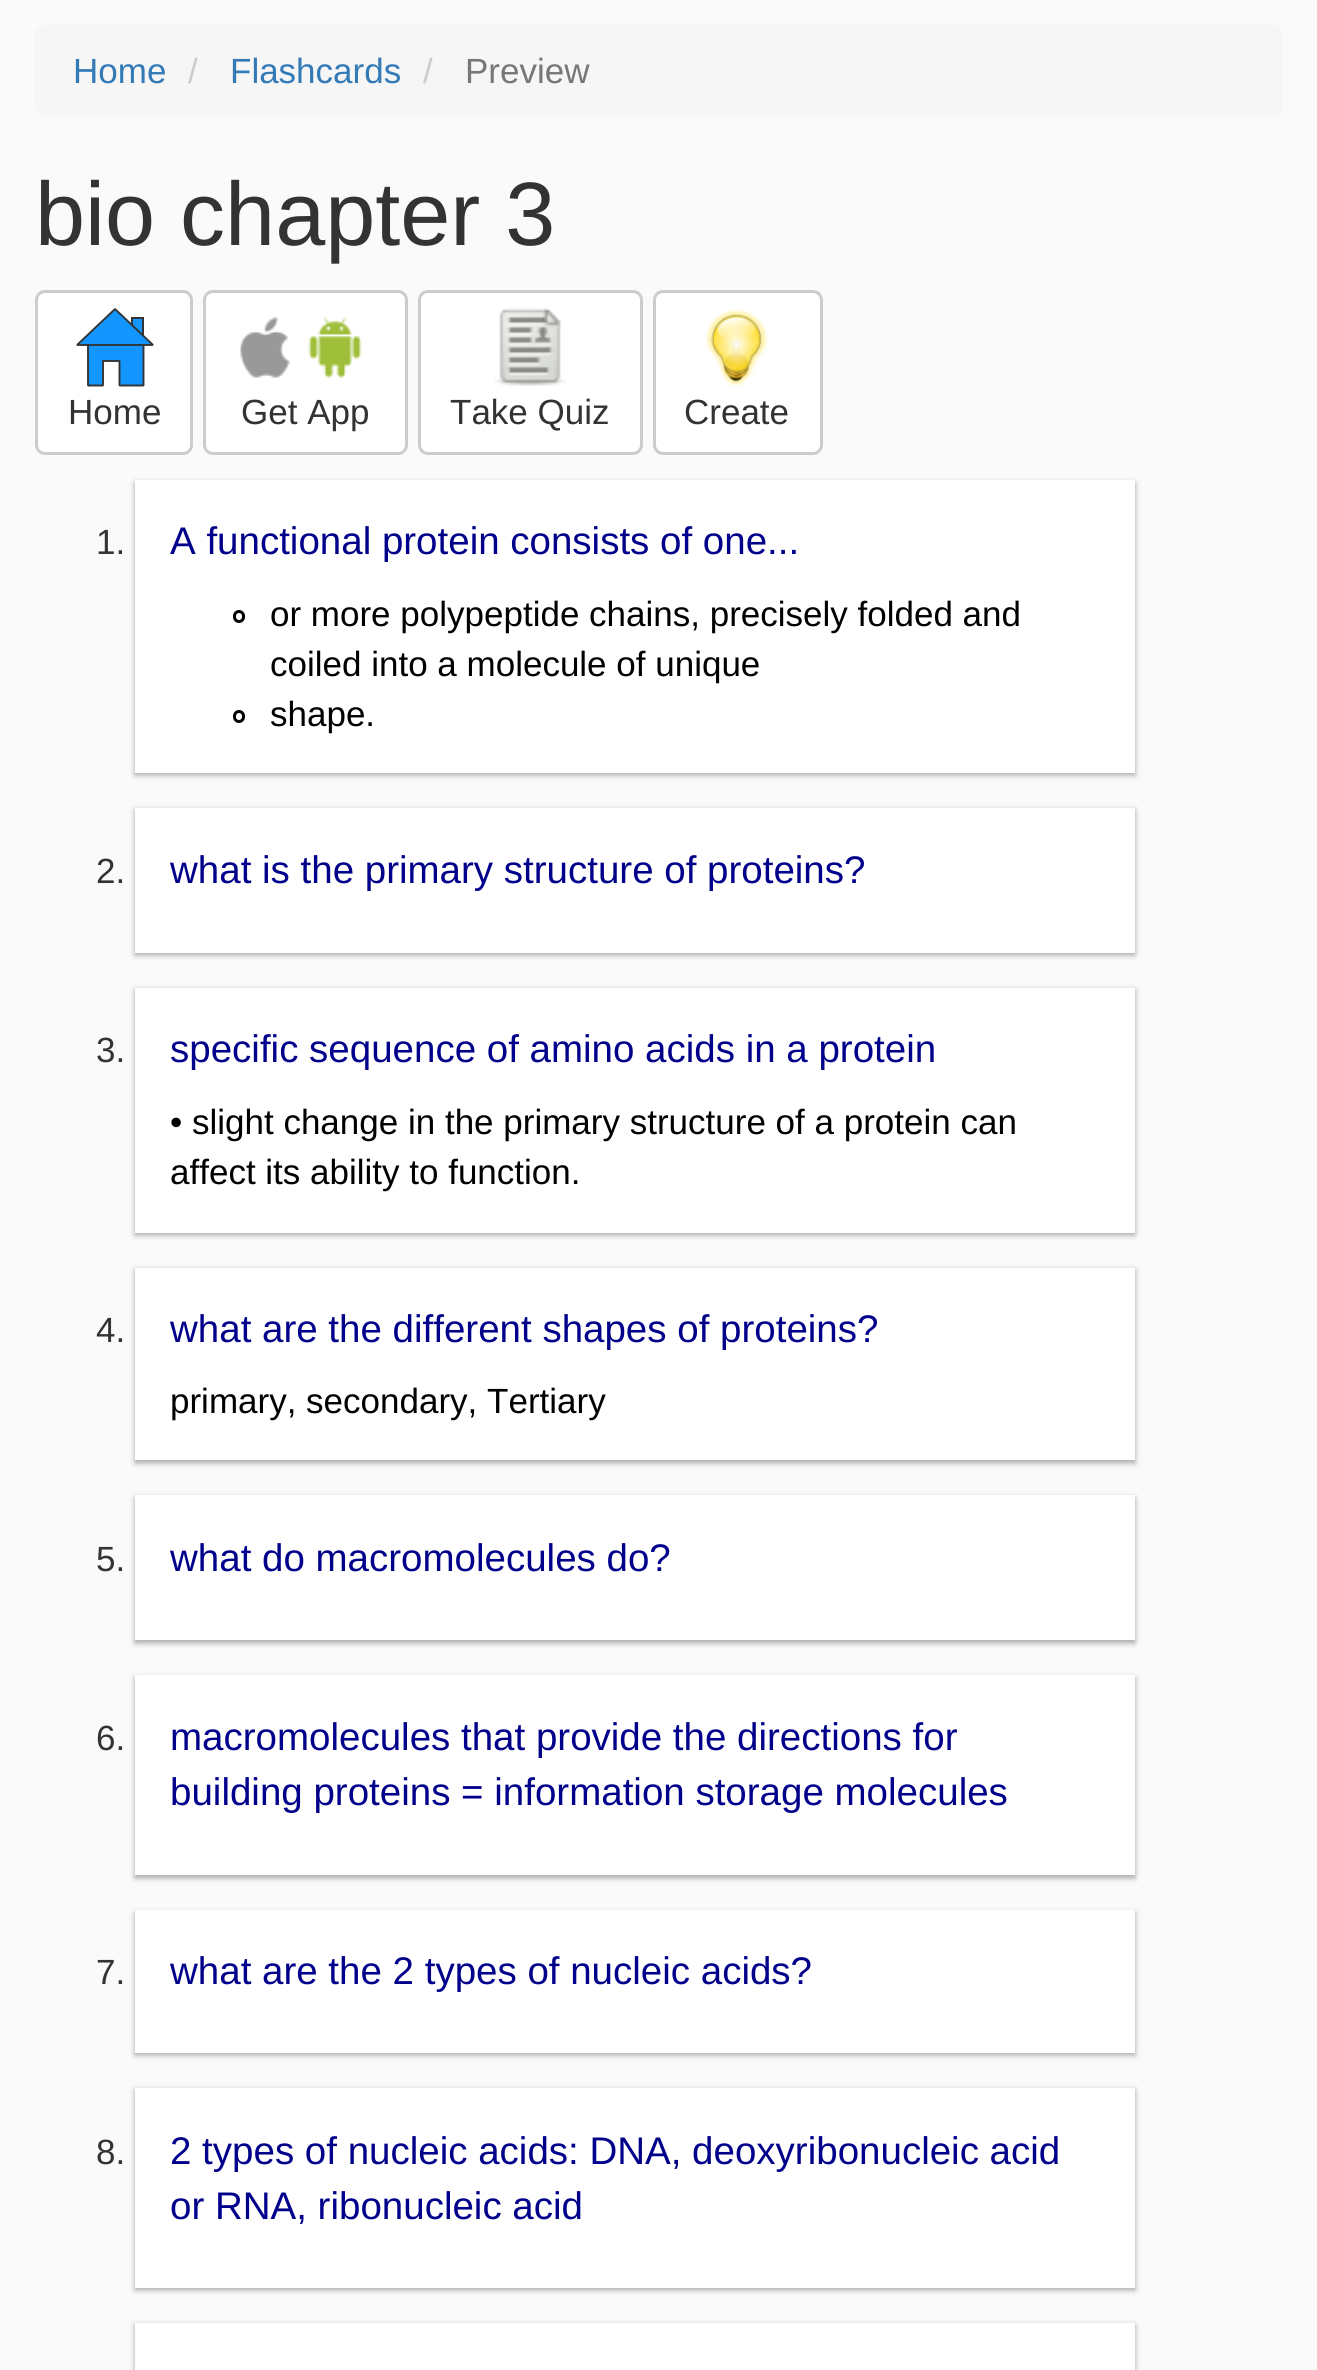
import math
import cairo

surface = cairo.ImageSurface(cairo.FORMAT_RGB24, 1317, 2370)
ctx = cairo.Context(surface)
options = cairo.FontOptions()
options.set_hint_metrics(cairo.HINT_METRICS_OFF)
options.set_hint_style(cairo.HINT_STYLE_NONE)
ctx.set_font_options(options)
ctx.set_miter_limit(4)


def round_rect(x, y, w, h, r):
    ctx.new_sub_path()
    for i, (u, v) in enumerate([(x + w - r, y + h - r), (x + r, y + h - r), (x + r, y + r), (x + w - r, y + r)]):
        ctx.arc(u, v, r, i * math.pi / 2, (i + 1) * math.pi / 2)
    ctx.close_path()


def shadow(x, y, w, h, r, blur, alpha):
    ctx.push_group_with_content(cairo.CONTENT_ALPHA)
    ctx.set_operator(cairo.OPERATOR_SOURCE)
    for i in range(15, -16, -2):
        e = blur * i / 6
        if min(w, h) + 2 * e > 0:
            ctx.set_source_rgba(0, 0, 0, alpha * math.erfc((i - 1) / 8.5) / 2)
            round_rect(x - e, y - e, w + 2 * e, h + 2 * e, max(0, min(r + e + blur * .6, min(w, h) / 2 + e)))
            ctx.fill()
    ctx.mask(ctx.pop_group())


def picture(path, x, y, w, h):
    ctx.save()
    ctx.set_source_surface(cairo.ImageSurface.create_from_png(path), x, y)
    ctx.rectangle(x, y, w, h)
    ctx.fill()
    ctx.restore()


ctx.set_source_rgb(0.98, 0.98, 0.98)
ctx.paint()
ctx.set_source_rgb(0.961, 0.961, 0.961)
round_rect(35, 25, 1248, 90, 10)
ctx.fill()
ctx.select_font_face("Liberation Sans")
ctx.set_font_size(35)
ctx.set_source_rgb(0.2, 0.478, 0.718)
ctx.move_to(73, 83)
ctx.show_text("Home")
ctx.set_source_rgb(0.8, 0.8, 0.8)
ctx.move_to(188, 83)
ctx.show_text("/")
ctx.set_source_rgb(0.2, 0.478, 0.718)
ctx.move_to(230, 83)
ctx.show_text("Flashcards")
ctx.set_source_rgb(0.8, 0.8, 0.8)
ctx.move_to(423, 83)
ctx.show_text("/")
ctx.set_source_rgb(0.467, 0.467, 0.467)
ctx.move_to(465, 83)
ctx.show_text("Preview")
ctx.set_font_size(90)
ctx.set_source_rgb(0.2, 0.2, 0.2)
ctx.move_to(35, 245)
ctx.show_text("bio chapter 3")
ctx.set_source_rgb(1, 1, 1)
round_rect(36.5, 291.5, 155, 162, 8.5)
ctx.fill_preserve()
ctx.set_source_rgb(0.8, 0.8, 0.8)
ctx.set_line_width(3)
ctx.stroke()
ctx.set_source_rgb(0.078, 0.588, 1)
ctx.rectangle(133, 319, 9, 15)
ctx.fill()
ctx.rectangle(132, 318, 11, 22)
ctx.set_source_rgb(0.2, 0.2, 0.2)
ctx.set_line_width(2)
ctx.stroke()
ctx.set_source_rgb(0.078, 0.588, 1)
ctx.new_path()
ctx.move_to(88, 343)
ctx.line_to(88, 385)
ctx.line_to(103, 385)
ctx.line_to(103, 361)
ctx.line_to(119, 361)
ctx.line_to(119, 385)
ctx.line_to(143, 385)
ctx.line_to(143, 343)
ctx.close_path()
ctx.fill()
ctx.new_path()
ctx.move_to(88, 343.5)
ctx.line_to(88, 385.5)
ctx.line_to(103, 385.5)
ctx.line_to(103, 361)
ctx.line_to(119.5, 361)
ctx.line_to(119.5, 385.5)
ctx.line_to(143.5, 385.5)
ctx.line_to(143.5, 343.5)
ctx.close_path()
ctx.set_source_rgb(0.2, 0.2, 0.2)
ctx.set_line_width(1.9)
ctx.set_line_cap(cairo.LINE_CAP_SQUARE)
ctx.set_line_join(cairo.LINE_JOIN_BEVEL)
ctx.stroke()
ctx.set_source_rgb(0.078, 0.588, 1)
ctx.new_path()
ctx.move_to(153, 345)
ctx.line_to(77, 345)
ctx.line_to(115, 309)
ctx.close_path()
ctx.fill_preserve()
ctx.set_source_rgb(0.2, 0.2, 0.2)
ctx.stroke()
ctx.set_font_size(35)
ctx.move_to(68, 424)
ctx.show_text("Home")
ctx.set_source_rgb(1, 1, 1)
round_rect(204.5, 291.5, 202, 162, 8.5)
ctx.fill_preserve()
ctx.set_source_rgb(0.8, 0.8, 0.8)
ctx.set_line_width(3)
ctx.set_line_cap(cairo.LINE_CAP_BUTT)
ctx.set_line_join(cairo.LINE_JOIN_MITER)
ctx.stroke()
picture("img1.png", 240, 317, 50, 61)
picture("img2.png", 308, 317, 54, 61)
ctx.set_source_rgb(0.2, 0.2, 0.2)
ctx.move_to(241, 424)
ctx.show_text("Get App")
ctx.set_source_rgb(1, 1, 1)
round_rect(419.5, 291.5, 222, 162, 8.5)
ctx.fill_preserve()
ctx.set_source_rgb(0.8, 0.8, 0.8)
ctx.stroke()
picture("img3.png", 494, 307, 72, 79)
ctx.set_source_rgb(0.2, 0.2, 0.2)
ctx.move_to(450, 424)
ctx.show_text("Take Quiz")
ctx.set_source_rgb(1, 1, 1)
round_rect(654.5, 291.5, 167, 162, 8.5)
ctx.fill_preserve()
ctx.set_source_rgb(0.8, 0.8, 0.8)
ctx.stroke()
picture("img4.png", 705, 309, 63, 77)
ctx.set_source_rgb(0.2, 0.2, 0.2)
ctx.move_to(684, 424)
ctx.show_text("Create")
ctx.set_source_rgb(0, 0, 0)
shadow(135, 483, 1000, 292, 0, 4, 0.12)
ctx.set_source_rgb(0.2, 0.2, 0.2)
ctx.move_to(96, 554)
ctx.show_text("1.")
ctx.set_source_rgb(0, 0, 0)
shadow(135, 483, 1000, 292, 0, 2.5, 0.24)
ctx.set_source_rgb(1, 1, 1)
ctx.rectangle(135, 480, 1000, 293)
ctx.fill()
ctx.set_font_size(38.5)
ctx.set_source_rgb(0, 0, 0.545)
ctx.move_to(170, 554)
ctx.show_text("A functional protein consists of one...")
round_rect(234.5, 611.5, 9, 10, 4.5)
ctx.set_source_rgb(0, 0, 0)
ctx.stroke()
ctx.set_font_size(35)
ctx.move_to(270, 626)
ctx.show_text("or more polypeptide chains, precisely folded and")
ctx.move_to(270, 676)
ctx.show_text("coiled into a molecule of unique")
round_rect(234.5, 711.5, 9, 10, 4.5)
ctx.stroke()
ctx.move_to(270, 726)
ctx.show_text("shape.")
ctx.set_source_rgb(0, 0, 0)
shadow(135, 810, 1000, 145, 0, 4, 0.12)
ctx.set_source_rgb(0.2, 0.2, 0.2)
ctx.move_to(96, 883)
ctx.show_text("2.")
ctx.set_source_rgb(0, 0, 0)
shadow(135, 810, 1000, 145, 0, 2.5, 0.24)
ctx.set_source_rgb(1, 1, 1)
ctx.rectangle(135, 808, 1000, 145)
ctx.fill()
ctx.set_font_size(38.5)
ctx.set_source_rgb(0, 0, 0.545)
ctx.move_to(170, 883)
ctx.show_text("what is the primary structure of proteins?")
ctx.set_source_rgb(0, 0, 0)
shadow(135, 990, 1000, 245, 0, 4, 0.12)
ctx.set_font_size(35)
ctx.set_source_rgb(0.2, 0.2, 0.2)
ctx.move_to(96, 1062)
ctx.show_text("3.")
ctx.set_source_rgb(0, 0, 0)
shadow(135, 990, 1000, 245, 0, 2.5, 0.24)
ctx.set_source_rgb(1, 1, 1)
ctx.rectangle(135, 988, 1000, 245)
ctx.fill()
ctx.set_font_size(38.5)
ctx.set_source_rgb(0, 0, 0.545)
ctx.move_to(170, 1062)
ctx.show_text("specific sequence of amino acids in a protein")
ctx.set_font_size(35)
ctx.set_source_rgb(0, 0, 0)
ctx.move_to(170, 1134)
ctx.show_text("• slight change in the primary structure of a protein can")
ctx.move_to(170, 1184)
ctx.show_text("affect its ability to function.")
ctx.set_source_rgb(0, 0, 0)
shadow(135, 1270, 1000, 193, 0, 4, 0.12)
ctx.set_source_rgb(0.2, 0.2, 0.2)
ctx.move_to(96, 1342)
ctx.show_text("4.")
ctx.set_source_rgb(0, 0, 0)
shadow(135, 1270, 1000, 193, 0, 2.5, 0.24)
ctx.set_source_rgb(1, 1, 1)
ctx.rectangle(135, 1268, 1000, 192)
ctx.fill()
ctx.set_font_size(38.5)
ctx.set_source_rgb(0, 0, 0.545)
ctx.move_to(170, 1342)
ctx.show_text("what are the different shapes of proteins?")
ctx.set_font_size(35)
ctx.set_source_rgb(0, 0, 0)
ctx.move_to(170, 1413)
ctx.show_text("primary, secondary, Tertiary")
ctx.set_source_rgb(0, 0, 0)
shadow(135, 1498, 1000, 145, 0, 4, 0.12)
ctx.set_source_rgb(0.2, 0.2, 0.2)
ctx.move_to(96, 1571)
ctx.show_text("5.")
ctx.set_source_rgb(0, 0, 0)
shadow(135, 1498, 1000, 145, 0, 2.5, 0.24)
ctx.set_source_rgb(1, 1, 1)
ctx.rectangle(135, 1495, 1000, 145)
ctx.fill()
ctx.set_font_size(38.5)
ctx.set_source_rgb(0, 0, 0.545)
ctx.move_to(170, 1571)
ctx.show_text("what do macromolecules do?")
ctx.set_source_rgb(0, 0, 0)
shadow(135, 1678, 1000, 200, 0, 4, 0.12)
ctx.set_font_size(35)
ctx.set_source_rgb(0.2, 0.2, 0.2)
ctx.move_to(96, 1750)
ctx.show_text("6.")
ctx.set_source_rgb(0, 0, 0)
shadow(135, 1678, 1000, 200, 0, 2.5, 0.24)
ctx.set_source_rgb(1, 1, 1)
ctx.rectangle(135, 1675, 1000, 200)
ctx.fill()
ctx.set_font_size(38.5)
ctx.set_source_rgb(0, 0, 0.545)
ctx.move_to(170, 1750)
ctx.show_text("macromolecules that provide the directions for")
ctx.move_to(170, 1805)
ctx.show_text("building proteins = information storage molecules")
ctx.set_source_rgb(0, 0, 0)
shadow(135, 1913, 1000, 142, 0, 4, 0.12)
ctx.set_font_size(35)
ctx.set_source_rgb(0.2, 0.2, 0.2)
ctx.move_to(96, 1984)
ctx.show_text("7.")
ctx.set_source_rgb(0, 0, 0)
shadow(135, 1913, 1000, 142, 0, 2.5, 0.24)
ctx.set_source_rgb(1, 1, 1)
ctx.rectangle(135, 1910, 1000, 143)
ctx.fill()
ctx.set_font_size(38.5)
ctx.set_source_rgb(0, 0, 0.545)
ctx.move_to(170, 1984)
ctx.show_text("what are the 2 types of nucleic acids?")
ctx.set_source_rgb(0, 0, 0)
shadow(135, 2090, 1000, 200, 0, 4, 0.12)
ctx.set_font_size(35)
ctx.set_source_rgb(0.2, 0.2, 0.2)
ctx.move_to(96, 2164)
ctx.show_text("8.")
ctx.set_source_rgb(0, 0, 0)
shadow(135, 2090, 1000, 200, 0, 2.5, 0.24)
ctx.set_source_rgb(1, 1, 1)
ctx.rectangle(135, 2088, 1000, 200)
ctx.fill()
ctx.set_font_size(38.5)
ctx.set_source_rgb(0, 0, 0.545)
ctx.move_to(170, 2164)
ctx.show_text("2 types of nucleic acids: DNA, deoxyribonucleic acid")
ctx.move_to(170, 2219)
ctx.show_text("or RNA, ribonucleic acid")
ctx.set_source_rgb(0, 0, 0)
shadow(135, 2325, 1000, 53, 0, 2.5, 0.24)
shadow(135, 2325, 1000, 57, 0, 4, 0.12)
ctx.set_source_rgb(1, 1, 1)
ctx.rectangle(135, 2323, 1000, 47)
ctx.fill()
surface.write_to_png("page.png")
